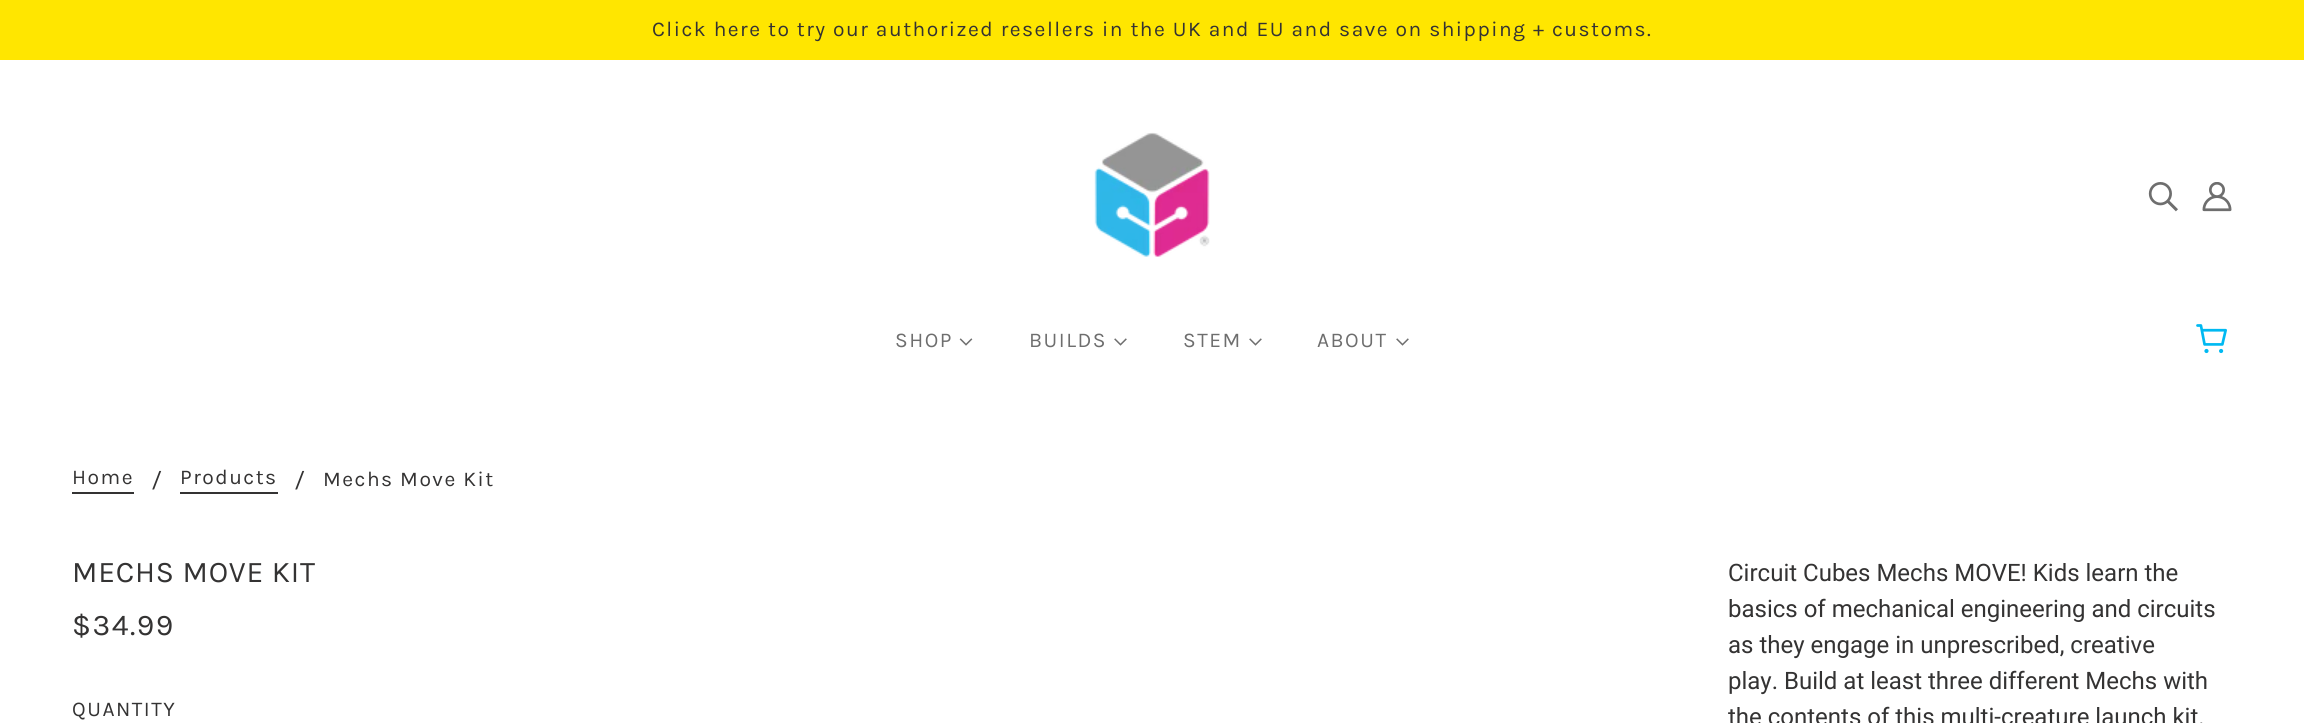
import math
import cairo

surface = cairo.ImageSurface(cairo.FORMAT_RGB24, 2304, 723)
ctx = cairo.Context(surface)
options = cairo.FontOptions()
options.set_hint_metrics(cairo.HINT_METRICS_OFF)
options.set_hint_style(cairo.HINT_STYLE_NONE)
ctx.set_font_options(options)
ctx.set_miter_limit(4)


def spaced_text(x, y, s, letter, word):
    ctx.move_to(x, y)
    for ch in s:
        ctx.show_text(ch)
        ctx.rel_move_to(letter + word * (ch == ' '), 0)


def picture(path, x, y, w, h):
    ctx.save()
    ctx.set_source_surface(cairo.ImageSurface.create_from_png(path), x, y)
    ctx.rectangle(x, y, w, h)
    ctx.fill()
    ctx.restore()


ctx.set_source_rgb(1, 1, 1)
ctx.paint()
ctx.set_source_rgb(1, 0.902, 0)
ctx.rectangle(0, 0, 2304, 60)
ctx.fill()
ctx.select_font_face("Karla")
ctx.set_font_size(21)
ctx.set_source_rgb(0.204, 0.2, 0.2)
spaced_text(652, 36, "Click here to try our authorized resellers in the UK and EU and save on shipping + customs.", 1.5, 0)
picture("img1.png", 1094, 132, 116, 125)
picture("img2.png", 2148, 182, 30, 30)
picture("img3.png", 2202, 182, 30, 30)
ctx.set_source_rgb(0.431, 0.431, 0.431)
spaced_text(895, 347, "SHOP", 1.5, 0)
picture("img4.png", 959, 338, 14, 8)
spaced_text(1029, 347, "BUILDS", 1.5, 0)
picture("img5.png", 1114, 338, 13, 8)
spaced_text(1183, 347, "STEM", 1.5, 0)
picture("img5.png", 1249, 338, 13, 8)
spaced_text(1317, 347, "ABOUT", 1.5, 0)
picture("img5.png", 1396, 338, 13, 8)
picture("img6.png", 2196, 324, 31, 30)
ctx.set_source_rgb(0.204, 0.2, 0.2)
spaced_text(72, 484, "Home", 1.5, 0)
ctx.rectangle(72, 492, 62, 2)
ctx.fill()
ctx.select_font_face("Roboto")
ctx.set_font_size(24)
ctx.move_to(152, 488)
ctx.show_text("/")
ctx.select_font_face("Karla")
ctx.set_font_size(21)
spaced_text(180, 484, "Products", 1.5, 0)
ctx.rectangle(180, 492, 98, 2)
ctx.fill()
ctx.select_font_face("Roboto")
ctx.set_font_size(24)
ctx.move_to(295, 488)
ctx.show_text("/")
ctx.select_font_face("Karla")
ctx.set_font_size(21)
spaced_text(323, 486, "Mechs Move Kit", 1.5, 0)
ctx.set_font_size(30)
spaced_text(72, 582, "MECHS MOVE KIT", 0.75, 0)
ctx.select_font_face("Roboto")
ctx.set_font_size(24)
ctx.move_to(1728, 581)
ctx.show_text("Circuit Cubes Mechs MOVE! Kids learn the")
ctx.move_to(1728, 617)
ctx.show_text("basics of mechanical engineering and circuits")
ctx.move_to(1728, 653)
ctx.show_text("as they engage in unprescribed, creative")
ctx.move_to(1728, 689)
ctx.show_text("play. Build at least three different Mechs with")
ctx.move_to(1728, 725)
ctx.show_text("the contents of this multi-creature launch kit.")
ctx.select_font_face("Karla")
ctx.set_font_size(30)
spaced_text(72, 635, "$34.99", 1.5, 0)
ctx.set_font_size(21)
spaced_text(72, 716, "QUANTITY", 1.5, 0)
surface.write_to_png("page.png")
